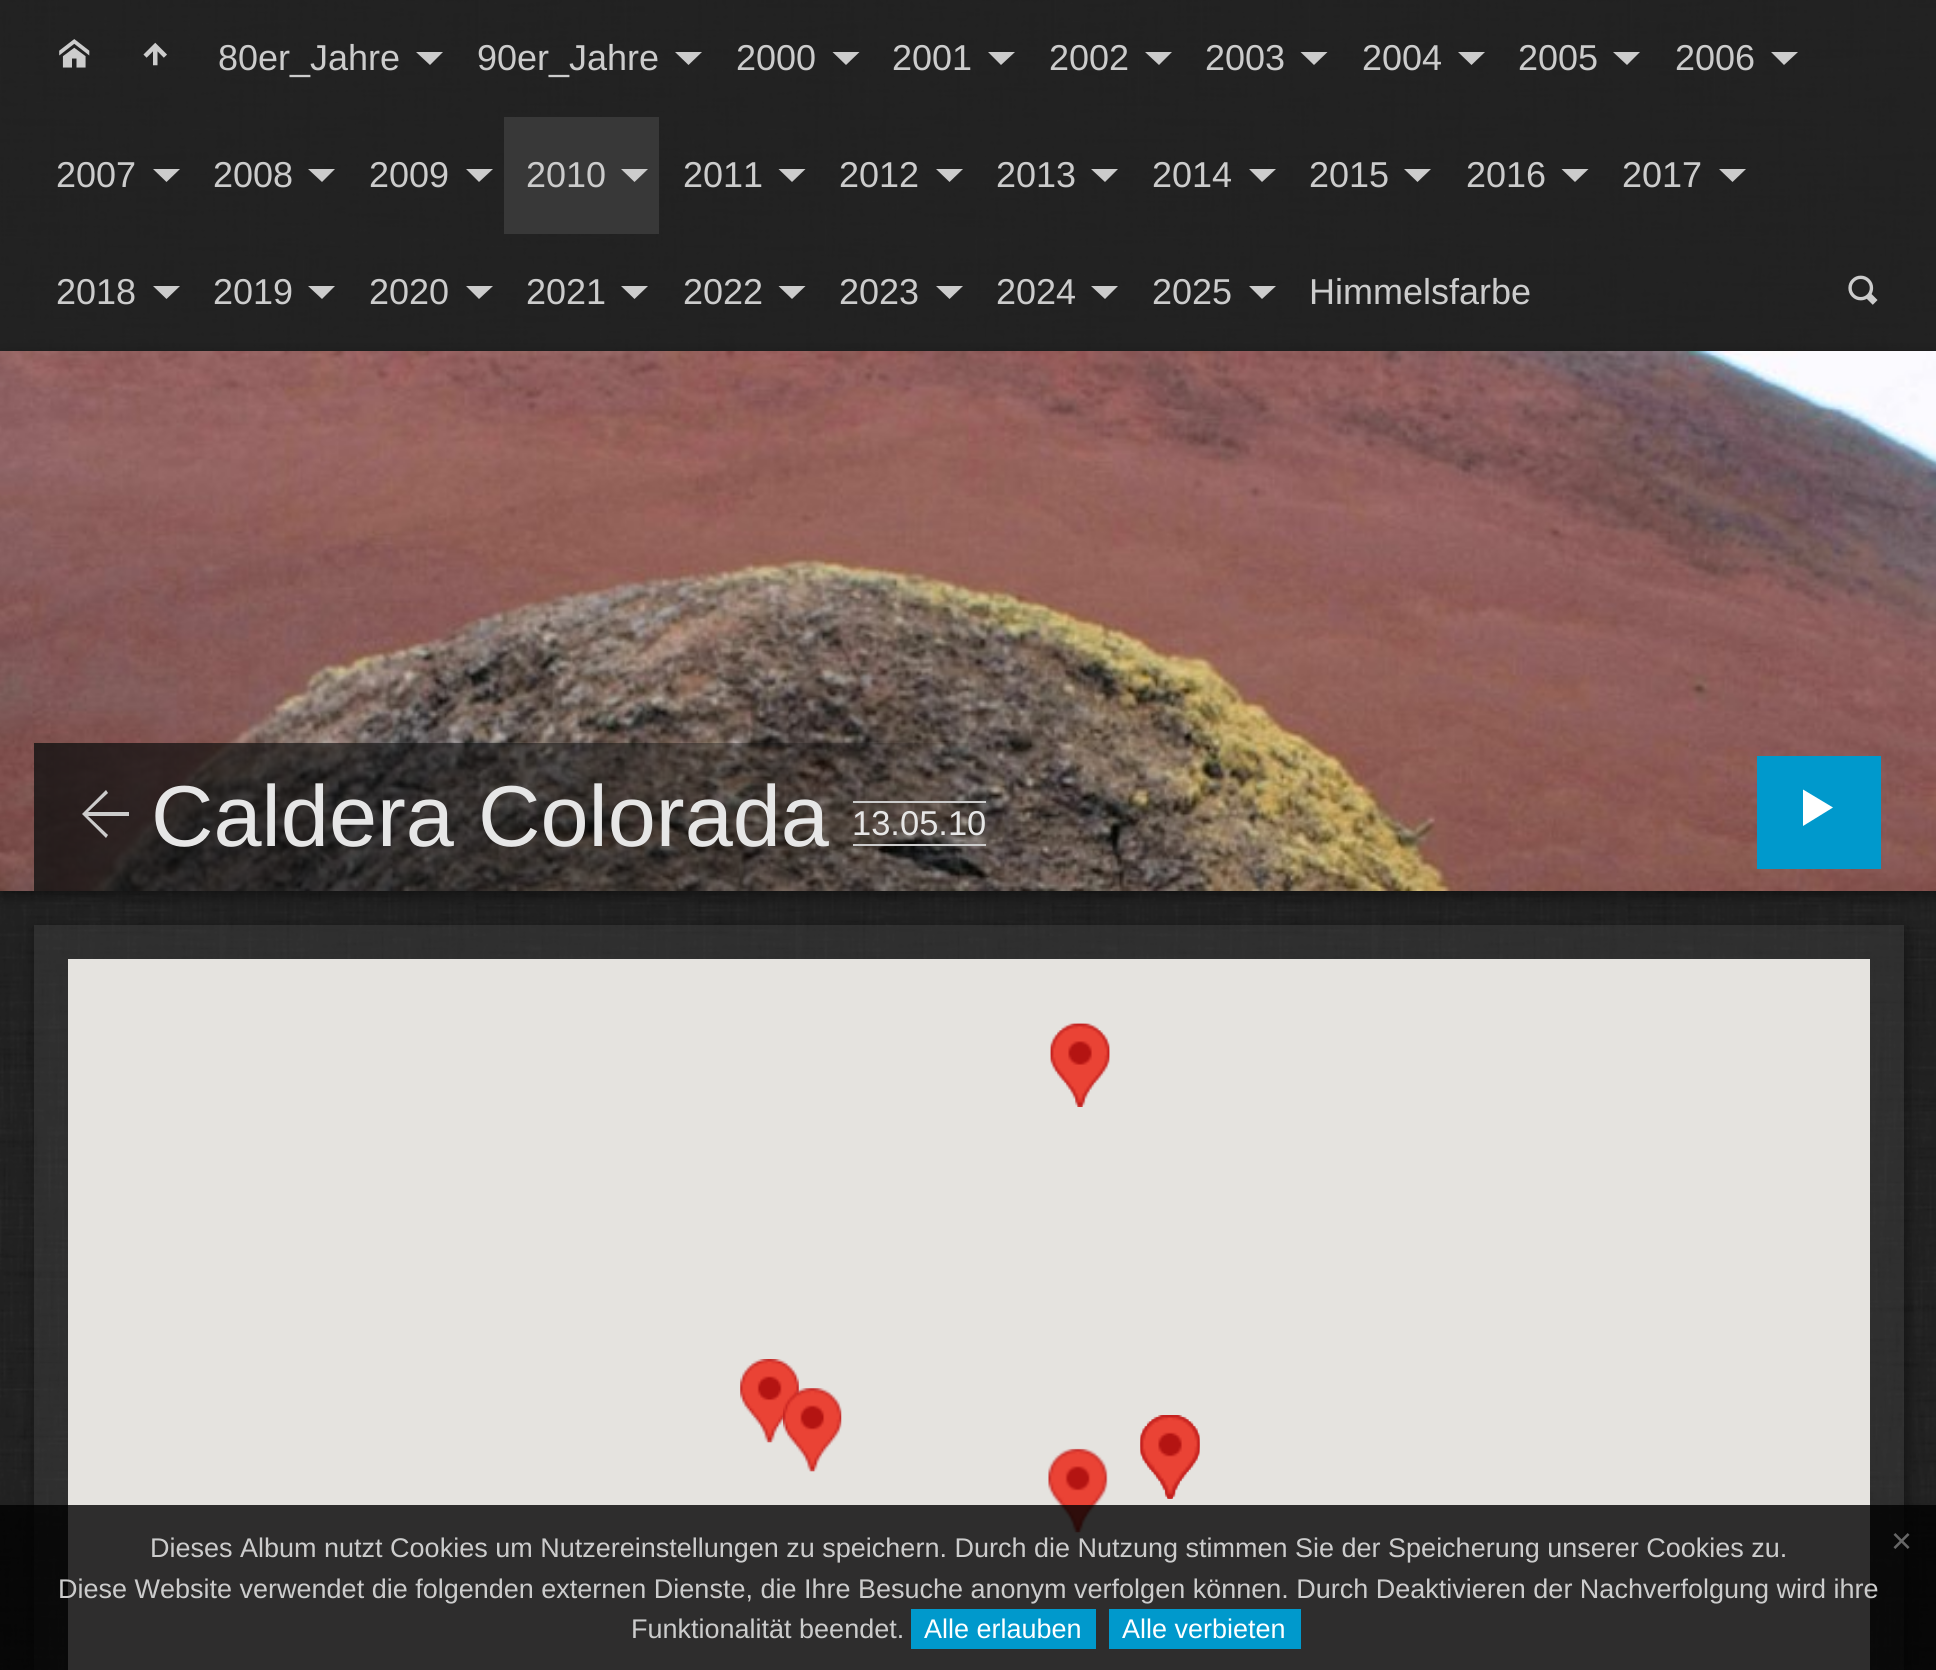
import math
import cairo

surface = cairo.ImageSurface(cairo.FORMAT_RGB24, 1936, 1670)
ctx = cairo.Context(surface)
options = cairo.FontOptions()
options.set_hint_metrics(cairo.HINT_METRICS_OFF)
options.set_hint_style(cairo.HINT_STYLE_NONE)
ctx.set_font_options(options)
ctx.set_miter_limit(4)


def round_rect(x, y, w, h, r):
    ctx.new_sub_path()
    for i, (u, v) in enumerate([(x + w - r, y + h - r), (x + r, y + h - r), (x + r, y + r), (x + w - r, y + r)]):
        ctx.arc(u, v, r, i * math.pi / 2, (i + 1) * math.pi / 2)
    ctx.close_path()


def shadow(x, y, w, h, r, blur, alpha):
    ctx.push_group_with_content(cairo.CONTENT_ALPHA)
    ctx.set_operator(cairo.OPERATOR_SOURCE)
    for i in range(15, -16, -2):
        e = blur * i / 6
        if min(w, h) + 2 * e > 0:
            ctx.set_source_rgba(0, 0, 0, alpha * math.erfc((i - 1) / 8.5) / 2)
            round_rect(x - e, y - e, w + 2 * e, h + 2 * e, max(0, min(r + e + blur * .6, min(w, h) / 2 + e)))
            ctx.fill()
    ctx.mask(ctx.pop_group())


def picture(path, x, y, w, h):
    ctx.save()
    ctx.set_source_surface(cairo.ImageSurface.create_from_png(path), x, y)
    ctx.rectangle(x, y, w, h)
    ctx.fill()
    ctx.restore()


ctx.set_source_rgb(0.133, 0.133, 0.133)
ctx.paint()
picture("img1.png", 0, 0, 1936, 1670)
ctx.set_source_rgba(0.133, 0.133, 0.133, 0.8)
ctx.rectangle(0, 0, 1936, 351)
ctx.fill()
picture("img2.png", 59, 39, 31, 29)
picture("img3.png", 143, 42, 24, 24)
ctx.select_font_face("Liberation Sans")
ctx.set_font_size(36)
ctx.set_source_rgb(0.8, 0.8, 0.8)
ctx.move_to(218, 70)
ctx.show_text("80er_Jahre")
ctx.new_path()
ctx.move_to(416, 52)
ctx.line_to(443, 52)
ctx.line_to(430, 65)
ctx.close_path()
ctx.fill()
ctx.move_to(477, 70)
ctx.show_text("90er_Jahre")
ctx.new_path()
ctx.move_to(675, 52)
ctx.line_to(702, 52)
ctx.line_to(688.5, 65)
ctx.close_path()
ctx.fill()
ctx.move_to(736, 70)
ctx.show_text("2000")
ctx.new_path()
ctx.move_to(832.5, 52)
ctx.line_to(859.5, 52)
ctx.line_to(846, 65)
ctx.close_path()
ctx.fill()
ctx.move_to(892, 70)
ctx.show_text("2001")
ctx.new_path()
ctx.move_to(988, 52)
ctx.line_to(1015, 52)
ctx.line_to(1001, 65)
ctx.close_path()
ctx.fill()
ctx.move_to(1049, 70)
ctx.show_text("2002")
ctx.new_path()
ctx.move_to(1145, 52)
ctx.line_to(1172, 52)
ctx.line_to(1159, 65)
ctx.close_path()
ctx.fill()
ctx.move_to(1205, 70)
ctx.show_text("2003")
ctx.new_path()
ctx.move_to(1300.5, 52)
ctx.line_to(1327.5, 52)
ctx.line_to(1314, 65)
ctx.close_path()
ctx.fill()
ctx.move_to(1362, 70)
ctx.show_text("2004")
ctx.new_path()
ctx.move_to(1458, 52)
ctx.line_to(1485, 52)
ctx.line_to(1471.5, 65)
ctx.close_path()
ctx.fill()
ctx.move_to(1518, 70)
ctx.show_text("2005")
ctx.new_path()
ctx.move_to(1613, 52)
ctx.line_to(1640, 52)
ctx.line_to(1627, 65)
ctx.close_path()
ctx.fill()
ctx.move_to(1675, 70)
ctx.show_text("2006")
ctx.new_path()
ctx.move_to(1771, 52)
ctx.line_to(1798, 52)
ctx.line_to(1784, 65)
ctx.close_path()
ctx.fill()
ctx.move_to(56, 187)
ctx.show_text("2007")
ctx.new_path()
ctx.move_to(153, 169)
ctx.line_to(180, 169)
ctx.line_to(166.5, 182)
ctx.close_path()
ctx.fill()
ctx.move_to(213, 187)
ctx.show_text("2008")
ctx.new_path()
ctx.move_to(308, 169)
ctx.line_to(335, 169)
ctx.line_to(322, 182)
ctx.close_path()
ctx.fill()
ctx.move_to(369, 187)
ctx.show_text("2009")
ctx.new_path()
ctx.move_to(466, 169)
ctx.line_to(493, 169)
ctx.line_to(479, 182)
ctx.close_path()
ctx.fill()
ctx.set_source_rgb(0.22, 0.22, 0.22)
ctx.rectangle(504, 117, 155, 117)
ctx.fill()
ctx.set_source_rgb(0.8, 0.8, 0.8)
ctx.move_to(526, 187)
ctx.show_text("2010")
ctx.new_path()
ctx.move_to(621, 169)
ctx.line_to(648, 169)
ctx.line_to(634.5, 182)
ctx.close_path()
ctx.fill()
ctx.move_to(683, 187)
ctx.show_text("2011")
ctx.new_path()
ctx.move_to(778.5, 169)
ctx.line_to(805.5, 169)
ctx.line_to(792, 182)
ctx.close_path()
ctx.fill()
ctx.move_to(839, 187)
ctx.show_text("2012")
ctx.new_path()
ctx.move_to(936, 169)
ctx.line_to(963, 169)
ctx.line_to(949.5, 182)
ctx.close_path()
ctx.fill()
ctx.move_to(996, 187)
ctx.show_text("2013")
ctx.new_path()
ctx.move_to(1091, 169)
ctx.line_to(1118, 169)
ctx.line_to(1105, 182)
ctx.close_path()
ctx.fill()
ctx.move_to(1152, 187)
ctx.show_text("2014")
ctx.new_path()
ctx.move_to(1249, 169)
ctx.line_to(1276, 169)
ctx.line_to(1262, 182)
ctx.close_path()
ctx.fill()
ctx.move_to(1309, 187)
ctx.show_text("2015")
ctx.new_path()
ctx.move_to(1404, 169)
ctx.line_to(1431, 169)
ctx.line_to(1417.5, 182)
ctx.close_path()
ctx.fill()
ctx.move_to(1466, 187)
ctx.show_text("2016")
ctx.new_path()
ctx.move_to(1561.5, 169)
ctx.line_to(1588.5, 169)
ctx.line_to(1575, 182)
ctx.close_path()
ctx.fill()
ctx.move_to(1622, 187)
ctx.show_text("2017")
ctx.new_path()
ctx.move_to(1719, 169)
ctx.line_to(1746, 169)
ctx.line_to(1732.5, 182)
ctx.close_path()
ctx.fill()
ctx.move_to(56, 304)
ctx.show_text("2018")
ctx.new_path()
ctx.move_to(153, 286)
ctx.line_to(180, 286)
ctx.line_to(166.5, 299)
ctx.close_path()
ctx.fill()
ctx.move_to(213, 304)
ctx.show_text("2019")
ctx.new_path()
ctx.move_to(308, 286)
ctx.line_to(335, 286)
ctx.line_to(322, 299)
ctx.close_path()
ctx.fill()
ctx.move_to(369, 304)
ctx.show_text("2020")
ctx.new_path()
ctx.move_to(466, 286)
ctx.line_to(493, 286)
ctx.line_to(479, 299)
ctx.close_path()
ctx.fill()
ctx.move_to(526, 304)
ctx.show_text("2021")
ctx.new_path()
ctx.move_to(621, 286)
ctx.line_to(648, 286)
ctx.line_to(634.5, 299)
ctx.close_path()
ctx.fill()
ctx.move_to(683, 304)
ctx.show_text("2022")
ctx.new_path()
ctx.move_to(778.5, 286)
ctx.line_to(805.5, 286)
ctx.line_to(792, 299)
ctx.close_path()
ctx.fill()
ctx.move_to(839, 304)
ctx.show_text("2023")
ctx.new_path()
ctx.move_to(936, 286)
ctx.line_to(963, 286)
ctx.line_to(949.5, 299)
ctx.close_path()
ctx.fill()
ctx.move_to(996, 304)
ctx.show_text("2024")
ctx.new_path()
ctx.move_to(1091, 286)
ctx.line_to(1118, 286)
ctx.line_to(1105, 299)
ctx.close_path()
ctx.fill()
ctx.move_to(1152, 304)
ctx.show_text("2025")
ctx.new_path()
ctx.move_to(1249, 286)
ctx.line_to(1276, 286)
ctx.line_to(1262, 299)
ctx.close_path()
ctx.fill()
ctx.move_to(1309, 304)
ctx.show_text("Himmelsfarbe")
picture("img4.png", 1848, 275, 30, 30)
ctx.set_source_rgb(0, 0, 0)
shadow(2, 356, 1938, 540, 0, 7, 0.45)
picture("img5.png", 0, 351, 1936, 540)
ctx.set_source_rgb(0.8, 0.8, 0.8)
ctx.new_path()
ctx.move_to(82, 814)
ctx.line_to(106, 790)
ctx.line_to(108, 793)
ctx.line_to(88, 812)
ctx.line_to(129, 812)
ctx.line_to(129, 816)
ctx.line_to(88, 816)
ctx.line_to(108, 835)
ctx.line_to(106, 838)
ctx.close_path()
ctx.fill()
ctx.set_font_size(86.5)
ctx.set_source_rgb(0.902, 0.902, 0.902)
ctx.move_to(151, 846)
ctx.show_text("Caldera Colorada")
ctx.set_source_rgb(0.8, 0.8, 0.8)
ctx.rectangle(853, 801, 133, 2)
ctx.fill()
ctx.rectangle(853, 844, 133, 2)
ctx.fill()
ctx.set_font_size(34.5)
ctx.set_source_rgb(0.902, 0.902, 0.902)
ctx.move_to(852, 835)
ctx.show_text("13.05.10")
ctx.set_source_rgb(0, 0.6, 0.8)
ctx.rectangle(1757, 756, 124, 113)
ctx.fill()
ctx.set_source_rgb(1, 1, 1)
ctx.new_path()
ctx.move_to(1833, 807.5)
ctx.line_to(1803, 826)
ctx.line_to(1803, 789.5)
ctx.close_path()
ctx.fill()
ctx.save()
ctx.set_fill_rule(cairo.FILL_RULE_EVEN_ODD)
ctx.new_path()
ctx.move_to(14, 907)
ctx.line_to(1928, 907)
ctx.line_to(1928, 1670)
ctx.line_to(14, 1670)
ctx.close_path()
ctx.move_to(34, 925)
ctx.line_to(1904, 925)
ctx.line_to(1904, 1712)
ctx.line_to(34, 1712)
ctx.close_path()
ctx.clip()
ctx.set_source_rgb(0, 0, 0)
shadow(36, 929, 1870, 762, 0, 7, 0.45)
ctx.restore()
ctx.set_source_rgba(0.267, 0.267, 0.267, 0.4)
ctx.rectangle(34, 925, 1870, 745)
ctx.fill()
ctx.set_source_rgb(0.898, 0.89, 0.875)
ctx.rectangle(68, 959, 1802, 711)
ctx.fill()
picture("img6.png", 1050, 1023, 60, 84)
picture("img7.png", 1050, 1023, 60, 84)
picture("img8.png", 740, 1359, 59, 84)
picture("img9.png", 783, 1388, 59, 84)
picture("img10.png", 1140, 1415, 60, 84)
picture("img11.png", 1140, 1415, 60, 84)
picture("img12.png", 1140, 1415, 60, 84)
picture("img13.png", 1140, 1415, 60, 84)
picture("img14.png", 1140, 1415, 60, 84)
picture("img15.png", 1048, 1448, 60, 85)
picture("img16.png", 1140, 1415, 60, 84)
ctx.set_source_rgba(0, 0, 0, 0.8)
ctx.rectangle(0, 1505, 1936, 165)
ctx.fill()
ctx.set_font_size(27)
ctx.set_source_rgb(0.8, 0.8, 0.8)
ctx.move_to(150, 1557)
ctx.show_text("Dieses Album nutzt Cookies um Nutzereinstellungen zu speichern. Durch die Nutzung stimmen Sie der Speicherung unserer Cookies zu.")
ctx.set_font_size(36)
ctx.set_source_rgb(0.4, 0.4, 0.4)
ctx.move_to(1891, 1553)
ctx.show_text("×")
ctx.set_font_size(27)
ctx.set_source_rgb(0.8, 0.8, 0.8)
ctx.move_to(58, 1598)
ctx.show_text("Diese Website verwendet die folgenden externen Dienste, die Ihre Besuche anonym verfolgen können. Durch Deaktivieren der Nachverfolgung wird ihre")
ctx.move_to(631, 1638)
ctx.show_text("Funktionalität beendet.")
ctx.set_source_rgb(0, 0.6, 0.8)
ctx.rectangle(911, 1609, 185, 40)
ctx.fill()
ctx.set_source_rgb(1, 1, 1)
ctx.move_to(924, 1638)
ctx.show_text("Alle erlauben")
ctx.set_source_rgb(0, 0.6, 0.8)
ctx.rectangle(1109, 1609, 192, 40)
ctx.fill()
ctx.set_source_rgb(1, 1, 1)
ctx.move_to(1122, 1638)
ctx.show_text("Alle verbieten")
surface.write_to_png("page.png")
